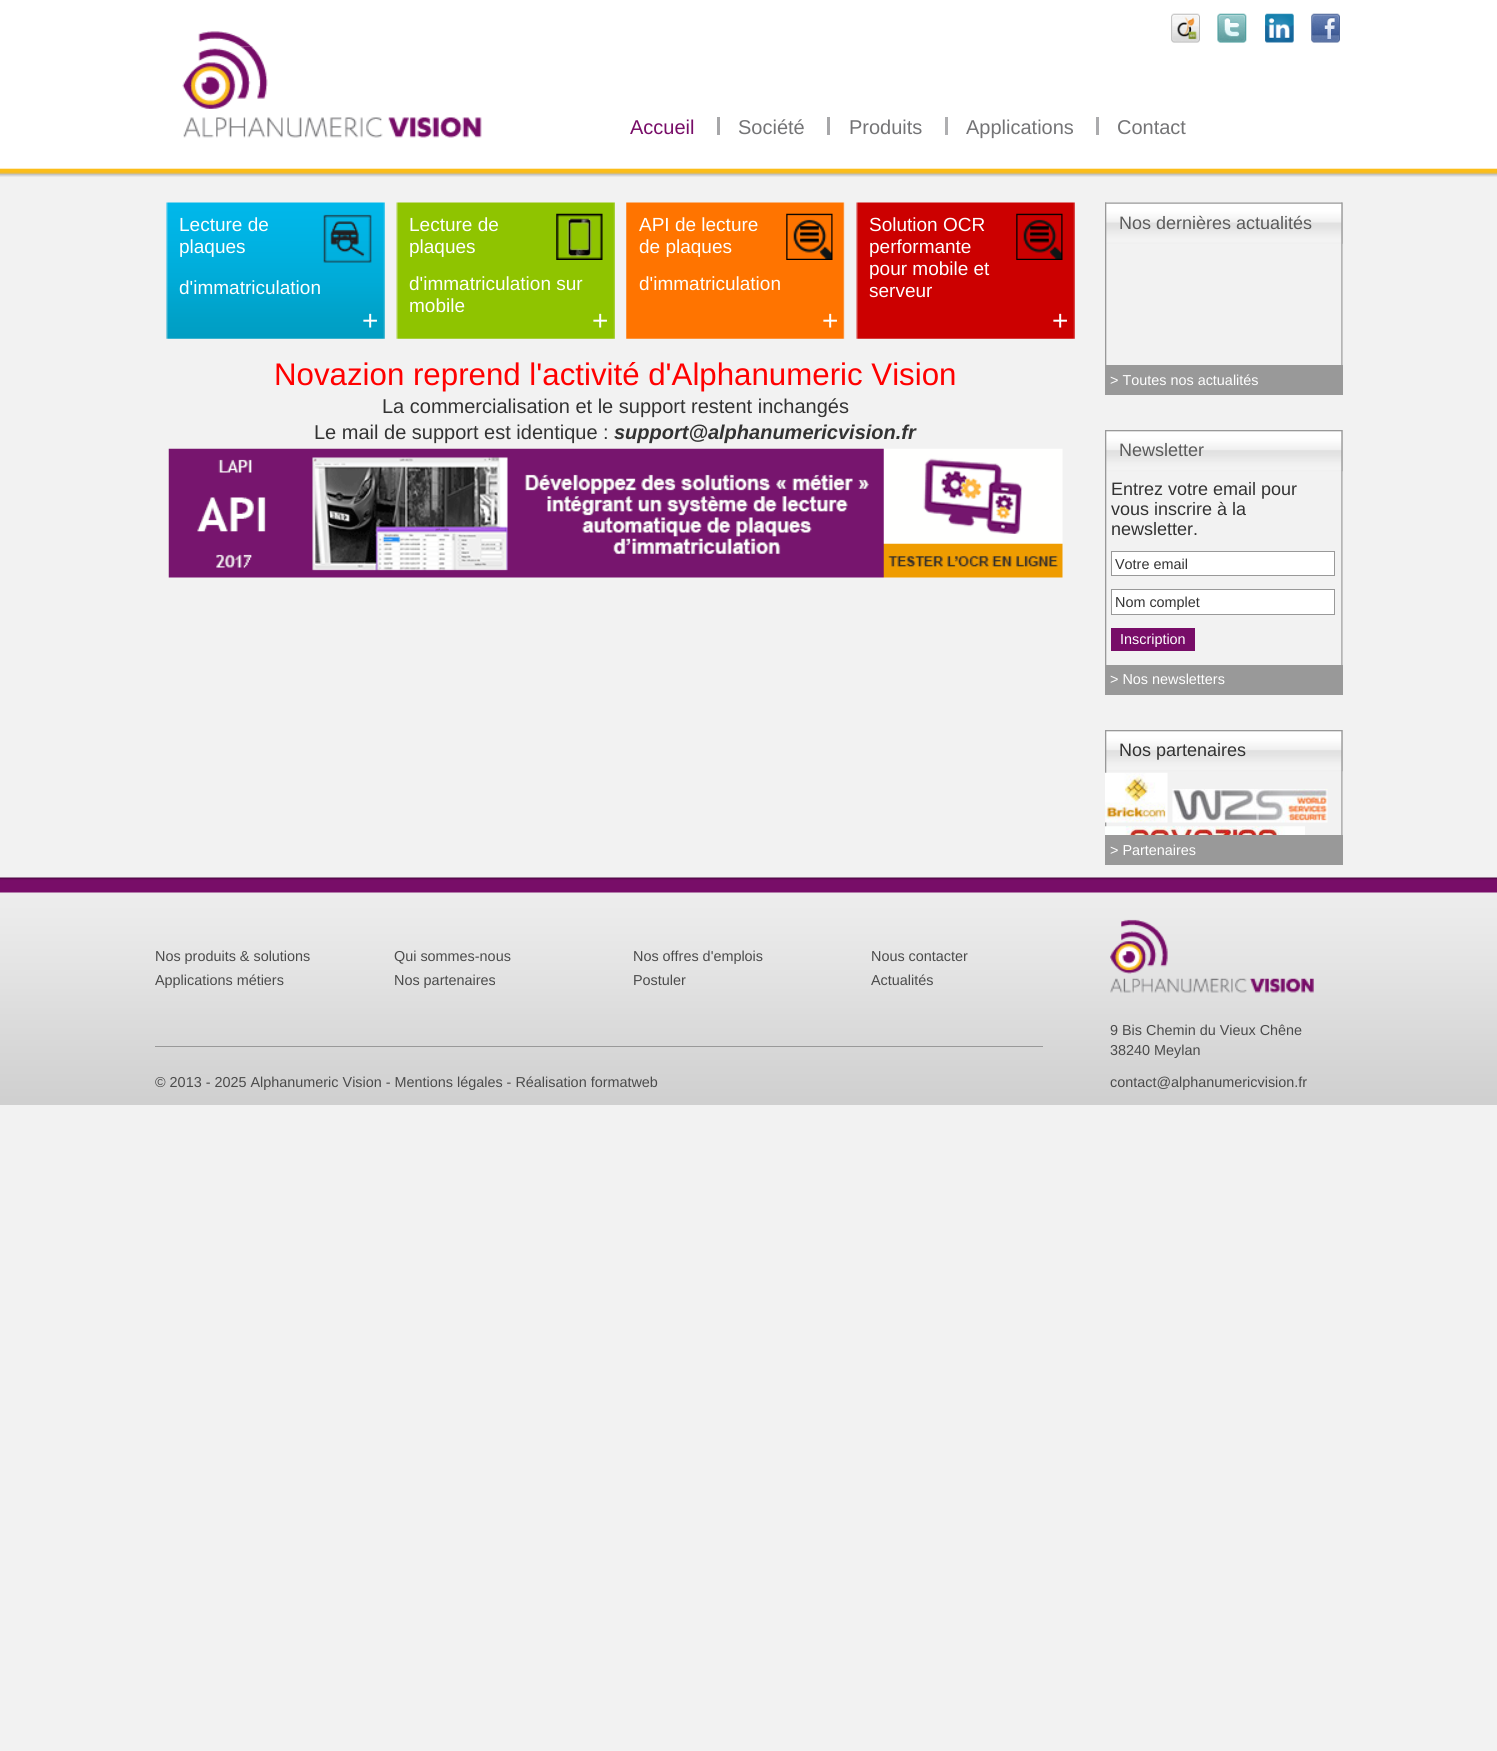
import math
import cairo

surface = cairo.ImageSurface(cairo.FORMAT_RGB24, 1497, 1751)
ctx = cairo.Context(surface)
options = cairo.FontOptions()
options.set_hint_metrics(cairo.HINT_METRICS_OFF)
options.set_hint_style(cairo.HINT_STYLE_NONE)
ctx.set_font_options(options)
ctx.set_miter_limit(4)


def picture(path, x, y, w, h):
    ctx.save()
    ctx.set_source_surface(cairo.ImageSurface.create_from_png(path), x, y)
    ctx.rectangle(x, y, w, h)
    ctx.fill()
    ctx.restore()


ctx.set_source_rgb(0.949, 0.949, 0.949)
ctx.paint()
picture("img1.png", 0, 0, 1497, 177)
picture("img2.png", 198, 31, 54, 16)
picture("img3.png", 1171, 13, 29, 30)
picture("img4.png", 1217, 13, 30, 30)
picture("img5.png", 1265, 13, 29, 30)
picture("img6.png", 1311, 13, 29, 30)
picture("img7.png", 182, 46, 300, 92)
ctx.select_font_face("Liberation Sans")
ctx.set_font_size(20)
ctx.set_source_rgb(0.471, 0.051, 0.408)
ctx.move_to(630, 134)
ctx.show_text("Accueil")
ctx.set_source_rgb(0.655, 0.655, 0.663)
ctx.rectangle(717, 117, 3, 18)
ctx.fill()
ctx.set_source_rgb(0.455, 0.455, 0.463)
ctx.move_to(738, 134)
ctx.show_text("Société")
ctx.set_source_rgb(0.655, 0.655, 0.663)
ctx.rectangle(827, 117, 3, 18)
ctx.fill()
ctx.set_source_rgb(0.455, 0.455, 0.463)
ctx.move_to(849, 134)
ctx.show_text("Produits")
ctx.set_source_rgb(0.686, 0.686, 0.694)
ctx.rectangle(945, 117, 3, 18)
ctx.fill()
ctx.set_source_rgb(0.455, 0.455, 0.463)
ctx.move_to(966, 134)
ctx.show_text("Applications")
ctx.set_source_rgb(0.671, 0.671, 0.678)
ctx.rectangle(1096, 117, 3, 18)
ctx.fill()
ctx.set_source_rgb(0.455, 0.455, 0.463)
ctx.move_to(1117, 134)
ctx.show_text("Contact")
picture("img8.png", 166, 202, 219, 137)
picture("img9.png", 323, 214, 49, 49)
ctx.set_font_size(19)
ctx.set_source_rgb(1, 1, 1)
ctx.move_to(179, 231)
ctx.show_text("Lecture de")
ctx.move_to(179, 253)
ctx.show_text("plaques")
ctx.move_to(179, 294)
ctx.show_text("d'immatriculation")
ctx.set_font_size(28)
ctx.move_to(362, 330)
ctx.show_text("+")
picture("img10.png", 396, 202, 219, 137)
picture("img11.png", 556, 213, 47, 47)
ctx.set_font_size(19)
ctx.move_to(409, 231)
ctx.show_text("Lecture de")
ctx.move_to(409, 253)
ctx.show_text("plaques")
ctx.move_to(409, 290)
ctx.show_text("d'immatriculation sur")
ctx.move_to(409, 312)
ctx.show_text("mobile")
ctx.set_font_size(28)
ctx.move_to(592, 330)
ctx.show_text("+")
picture("img12.png", 626, 202, 219, 137)
picture("img13.png", 786, 213, 47, 47)
ctx.set_font_size(19)
ctx.move_to(639, 231)
ctx.show_text("API de lecture")
ctx.move_to(639, 253)
ctx.show_text("de plaques")
ctx.move_to(639, 290)
ctx.show_text("d'immatriculation")
ctx.set_font_size(28)
ctx.move_to(822, 330)
ctx.show_text("+")
picture("img14.png", 856, 202, 219, 137)
picture("img15.png", 1016, 213, 47, 47)
ctx.set_font_size(19)
ctx.move_to(869, 231)
ctx.show_text("Solution OCR")
ctx.move_to(869, 253)
ctx.show_text("performante")
ctx.move_to(869, 275)
ctx.show_text("pour mobile et")
ctx.move_to(869, 297)
ctx.show_text("serveur")
ctx.set_font_size(28)
ctx.move_to(1052, 330)
ctx.show_text("+")
ctx.set_font_size(31.25)
ctx.set_source_rgb(1, 0, 0)
ctx.move_to(274, 385)
ctx.show_text("Novazion reprend l'activité d'Alphanumeric Vision")
ctx.set_font_size(20)
ctx.set_source_rgb(0.2, 0.2, 0.2)
ctx.move_to(382, 413)
ctx.show_text("La commercialisation et le support restent inchangés")
ctx.move_to(314, 439)
ctx.show_text("Le mail de support est identique :")
ctx.select_font_face("Liberation Sans", cairo.FONT_SLANT_ITALIC, cairo.FONT_WEIGHT_BOLD)
ctx.move_to(614, 439)
ctx.show_text("support@alphanumericvision.fr")
picture("img16.png", 168, 448, 895, 130)
picture("img17.png", 1105, 202, 238, 163)
picture("img18.png", 1105, 202, 238, 42)
ctx.select_font_face("Liberation Sans")
ctx.set_font_size(18)
ctx.set_source_rgb(0.357, 0.357, 0.357)
ctx.move_to(1119, 229)
ctx.show_text("Nos dernières actualités")
ctx.set_source_rgb(0.6, 0.6, 0.6)
ctx.rectangle(1105, 365, 238, 30)
ctx.fill()
ctx.set_font_size(14.4)
ctx.set_source_rgb(1, 1, 1)
ctx.move_to(1110, 385)
ctx.show_text("> Toutes nos actualités")
picture("img19.png", 1105, 430, 238, 235)
picture("img20.png", 1106, 430, 237, 42)
ctx.set_font_size(18)
ctx.set_source_rgb(0.357, 0.357, 0.357)
ctx.move_to(1119, 456)
ctx.show_text("Newsletter")
ctx.set_source_rgb(0.2, 0.2, 0.2)
ctx.move_to(1111, 495)
ctx.show_text("Entrez votre email pour")
ctx.move_to(1111, 515)
ctx.show_text("vous inscrire à la")
ctx.move_to(1111, 535)
ctx.show_text("newsletter.")
ctx.set_source_rgb(1, 1, 1)
ctx.rectangle(1111.5, 551.5, 223, 24)
ctx.fill_preserve()
ctx.set_source_rgb(0.6, 0.6, 0.6)
ctx.set_line_width(1)
ctx.stroke()
ctx.set_font_size(14.4)
ctx.set_source_rgb(0.2, 0.2, 0.2)
ctx.move_to(1115, 569)
ctx.show_text("Votre email")
ctx.set_source_rgb(1, 1, 1)
ctx.rectangle(1111.5, 589.5, 223, 25)
ctx.fill_preserve()
ctx.set_source_rgb(0.6, 0.6, 0.6)
ctx.stroke()
ctx.set_source_rgb(0.2, 0.2, 0.2)
ctx.move_to(1115, 607)
ctx.show_text("Nom complet")
ctx.set_source_rgb(0.471, 0.051, 0.408)
ctx.rectangle(1111, 628, 84, 23)
ctx.fill()
ctx.set_source_rgb(1, 1, 1)
ctx.move_to(1120, 644)
ctx.show_text("Inscription")
ctx.set_source_rgb(0.6, 0.6, 0.6)
ctx.rectangle(1105, 665, 238, 30)
ctx.fill()
ctx.set_source_rgb(1, 1, 1)
ctx.move_to(1110, 684)
ctx.show_text("> Nos newsletters")
picture("img21.png", 1105, 730, 238, 105)
picture("img20.png", 1106, 730, 237, 42)
ctx.set_font_size(18)
ctx.set_source_rgb(0.2, 0.2, 0.2)
ctx.move_to(1119, 756)
ctx.show_text("Nos partenaires")
picture("img22.png", 1105, 772, 63, 51)
picture("img23.png", 1172, 789, 156, 34)
picture("img24.png", 1105, 826, 200, 9)
ctx.set_source_rgb(0.6, 0.6, 0.6)
ctx.rectangle(1105, 835, 238, 30)
ctx.fill()
ctx.set_font_size(14.4)
ctx.set_source_rgb(1, 1, 1)
ctx.move_to(1110, 855)
ctx.show_text("> Partenaires")
picture("img25.png", 0, 877, 1497, 228)
ctx.set_source_rgb(0.294, 0.294, 0.294)
ctx.move_to(155, 961)
ctx.show_text("Nos produits & solutions")
ctx.move_to(394, 961)
ctx.show_text("Qui sommes-nous")
ctx.move_to(633, 961)
ctx.show_text("Nos offres d'emplois")
ctx.move_to(871, 961)
ctx.show_text("Nous contacter")
ctx.move_to(155, 985)
ctx.show_text("Applications métiers")
ctx.move_to(394, 985)
ctx.show_text("Nos partenaires")
ctx.move_to(633, 985)
ctx.show_text("Postuler")
ctx.move_to(871, 985)
ctx.show_text("Actualités")
ctx.set_source_rgb(0.6, 0.6, 0.6)
ctx.rectangle(155, 1046, 888, 1)
ctx.fill()
ctx.set_source_rgb(0.294, 0.294, 0.294)
ctx.move_to(155, 1087)
ctx.show_text("© 2013 - 2025 Alphanumeric Vision - Mentions légales - Réalisation formatweb")
picture("img26.png", 1110, 919, 204, 74)
ctx.move_to(1110, 1035)
ctx.show_text("9 Bis Chemin du Vieux Chêne")
ctx.move_to(1110, 1055)
ctx.show_text("38240 Meylan")
ctx.move_to(1110, 1087)
ctx.show_text("contact@alphanumericvision.fr")
surface.write_to_png("page.png")
